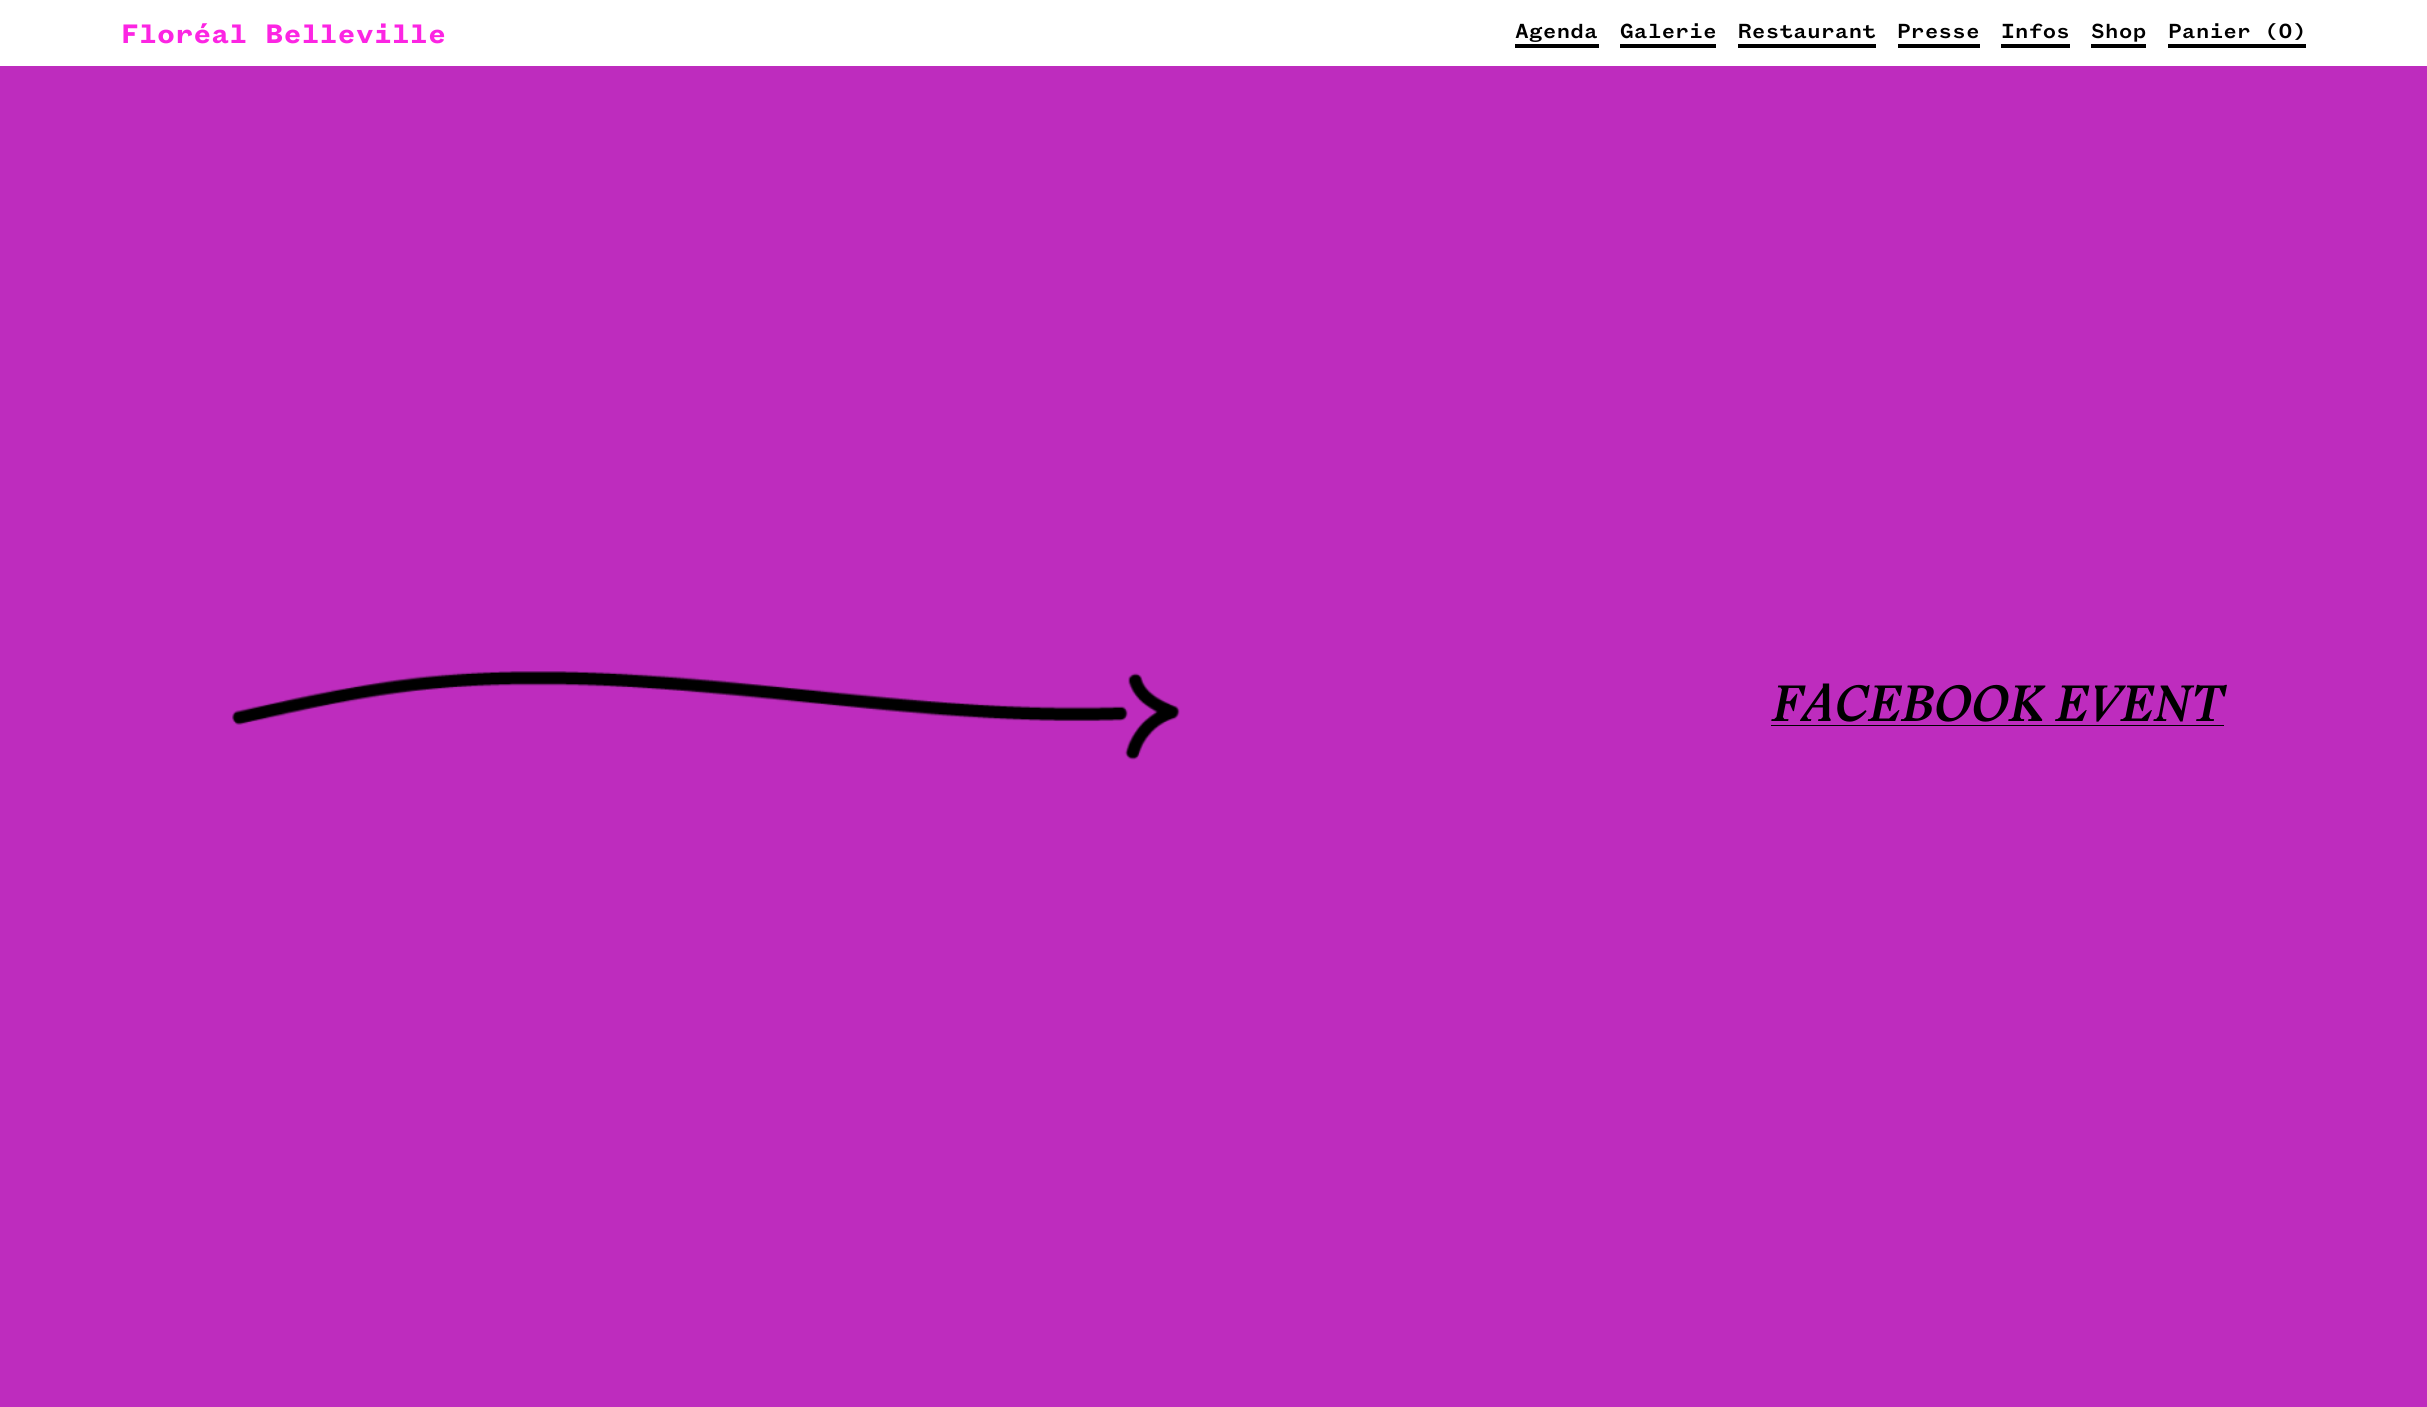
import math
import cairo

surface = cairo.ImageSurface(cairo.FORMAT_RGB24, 2427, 1407)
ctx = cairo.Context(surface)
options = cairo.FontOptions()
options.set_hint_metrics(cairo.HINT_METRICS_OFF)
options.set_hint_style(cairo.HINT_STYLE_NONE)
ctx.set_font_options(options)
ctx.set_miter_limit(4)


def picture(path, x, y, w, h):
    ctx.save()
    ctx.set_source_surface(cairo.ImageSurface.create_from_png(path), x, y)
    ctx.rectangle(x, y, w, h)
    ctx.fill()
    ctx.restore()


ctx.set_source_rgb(0.745, 0.173, 0.745)
ctx.paint()
ctx.set_source_rgb(1, 1, 1)
ctx.rectangle(0, 0, 2427, 66)
ctx.fill()
ctx.select_font_face("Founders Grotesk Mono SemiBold")
ctx.set_font_size(29.4)
ctx.set_source_rgb(0.988, 0.145, 0.89)
ctx.move_to(121, 43)
ctx.show_text("Floréal Belleville")
ctx.select_font_face("Founders Grotesk Mono Medium")
ctx.set_font_size(22.5)
ctx.set_source_rgb(0, 0, 0)
ctx.move_to(1515, 38)
ctx.show_text("Agenda")
ctx.rectangle(1515, 44, 84, 4)
ctx.fill()
ctx.move_to(1620, 38)
ctx.show_text("Galerie")
ctx.rectangle(1620, 44, 96, 4)
ctx.fill()
ctx.move_to(1738, 38)
ctx.show_text("Restaurant")
ctx.rectangle(1738, 44, 138, 4)
ctx.fill()
ctx.move_to(1897, 38)
ctx.show_text("Presse")
ctx.rectangle(1898, 44, 82, 4)
ctx.fill()
ctx.move_to(2001, 38)
ctx.show_text("Infos")
ctx.rectangle(2001, 44, 69, 4)
ctx.fill()
ctx.move_to(2091, 38)
ctx.show_text("Shop")
ctx.rectangle(2091, 44, 55, 4)
ctx.fill()
ctx.move_to(2168, 38)
ctx.show_text("Panier (0)")
ctx.rectangle(2168, 44, 138, 4)
ctx.fill()
picture("img1.png", 232, 671, 948, 89)
ctx.select_font_face("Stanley", cairo.FONT_SLANT_ITALIC, cairo.FONT_WEIGHT_BOLD)
ctx.set_font_size(50)
ctx.move_to(1771, 721)
ctx.show_text("FACEBOOK EVENT")
ctx.rectangle(1771, 725, 453, 1)
ctx.fill()
surface.write_to_png("page.png")
